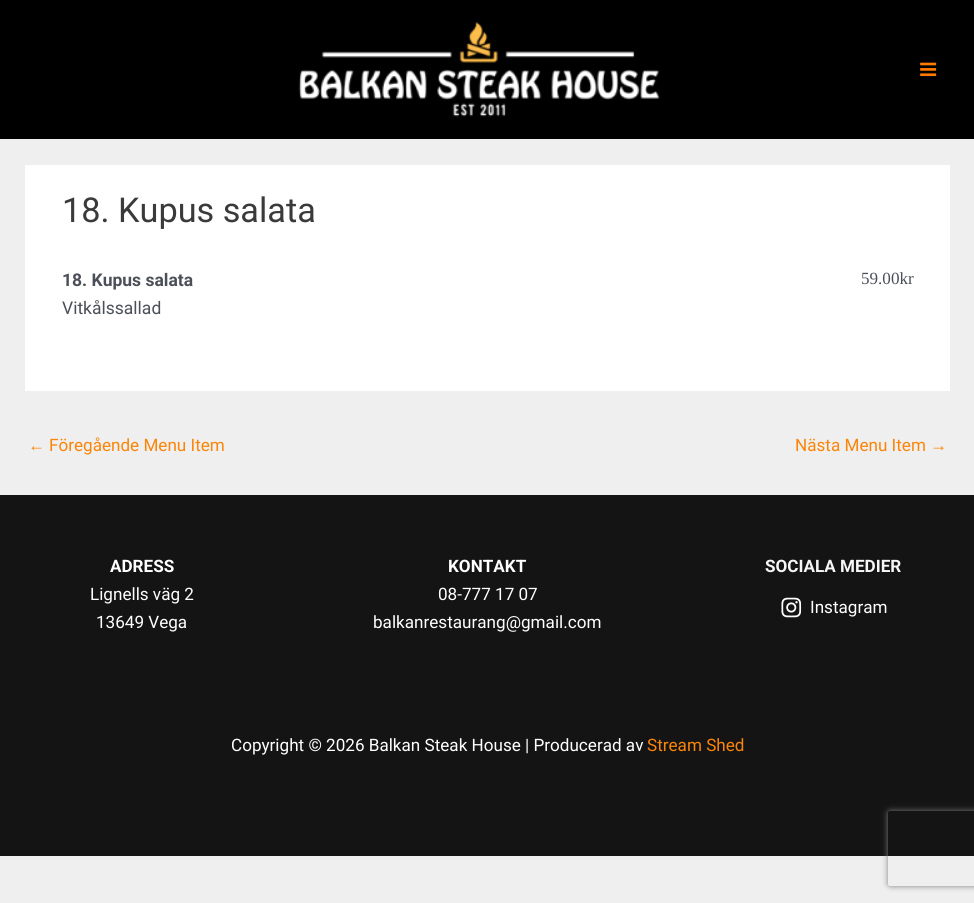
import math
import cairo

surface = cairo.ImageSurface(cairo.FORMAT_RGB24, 974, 903)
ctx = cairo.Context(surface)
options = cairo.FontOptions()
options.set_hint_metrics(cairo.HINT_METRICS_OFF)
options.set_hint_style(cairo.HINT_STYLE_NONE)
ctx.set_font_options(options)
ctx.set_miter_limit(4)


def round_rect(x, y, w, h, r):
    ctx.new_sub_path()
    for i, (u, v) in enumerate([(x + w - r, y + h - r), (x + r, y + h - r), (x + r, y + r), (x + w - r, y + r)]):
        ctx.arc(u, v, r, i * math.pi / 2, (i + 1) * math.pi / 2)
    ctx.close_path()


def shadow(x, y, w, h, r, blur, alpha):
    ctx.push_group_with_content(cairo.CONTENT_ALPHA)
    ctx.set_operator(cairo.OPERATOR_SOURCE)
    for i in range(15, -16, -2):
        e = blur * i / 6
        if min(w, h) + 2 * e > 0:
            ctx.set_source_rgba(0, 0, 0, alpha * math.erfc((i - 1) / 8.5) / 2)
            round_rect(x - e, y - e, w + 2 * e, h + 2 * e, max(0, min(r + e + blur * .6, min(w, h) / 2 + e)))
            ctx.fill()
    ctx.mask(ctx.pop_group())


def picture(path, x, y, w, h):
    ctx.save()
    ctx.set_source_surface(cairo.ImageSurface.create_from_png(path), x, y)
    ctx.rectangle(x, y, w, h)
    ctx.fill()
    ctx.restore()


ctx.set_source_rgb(0.937, 0.937, 0.937)
ctx.paint()
ctx.set_source_rgb(0, 0, 0)
ctx.rectangle(0, 0, 974, 139)
ctx.fill()
picture("img1.png", 298, 21, 362, 96)
picture("img2.png", 920, 62, 17, 15)
ctx.set_source_rgb(1, 1, 1)
ctx.rectangle(25, 165, 925, 226)
ctx.fill()
ctx.select_font_face("Roboto")
ctx.set_font_size(34.25)
ctx.set_source_rgb(0.227, 0.227, 0.227)
ctx.move_to(62, 222)
ctx.show_text("18. Kupus salata")
ctx.select_font_face("Roboto", cairo.FONT_SLANT_NORMAL, cairo.FONT_WEIGHT_BOLD)
ctx.set_font_size(17.5)
ctx.set_source_rgb(0.294, 0.31, 0.345)
ctx.move_to(62, 286)
ctx.show_text("18. Kupus salata")
ctx.select_font_face("Liberation Serif")
ctx.set_font_size(17.1)
ctx.move_to(861, 284)
ctx.show_text("59.00kr")
ctx.select_font_face("Roboto")
ctx.set_font_size(17.5)
ctx.move_to(62, 314)
ctx.show_text("Vitkålssallad")
ctx.select_font_face("Liberation Sans")
ctx.set_font_size(17.1)
ctx.set_source_rgb(0.98, 0.522, 0.035)
ctx.move_to(28, 451)
ctx.show_text("←")
ctx.select_font_face("Roboto")
ctx.move_to(49, 451)
ctx.show_text("Föregående Menu Item")
ctx.move_to(795, 451)
ctx.show_text("Nästa Menu Item")
ctx.select_font_face("Liberation Sans")
ctx.move_to(930, 451)
ctx.show_text("→")
ctx.set_source_rgb(0.082, 0.082, 0.082)
ctx.rectangle(0, 495, 974, 210)
ctx.fill()
ctx.select_font_face("Roboto", cairo.FONT_SLANT_NORMAL, cairo.FONT_WEIGHT_BOLD)
ctx.set_source_rgb(1, 1, 1)
ctx.move_to(110, 572)
ctx.show_text("ADRESS")
ctx.select_font_face("Roboto")
ctx.move_to(90, 600)
ctx.show_text("Lignells väg 2")
ctx.move_to(96, 628)
ctx.show_text("13649 Vega")
ctx.select_font_face("Roboto", cairo.FONT_SLANT_NORMAL, cairo.FONT_WEIGHT_BOLD)
ctx.move_to(448, 572)
ctx.show_text("KONTAKT")
ctx.select_font_face("Roboto")
ctx.move_to(438, 600)
ctx.show_text("08-777 17 07")
ctx.move_to(373, 628)
ctx.show_text("balkanrestaurang@gmail.com")
ctx.select_font_face("Roboto", cairo.FONT_SLANT_NORMAL, cairo.FONT_WEIGHT_BOLD)
ctx.set_source_rgb(0.961, 0.961, 0.961)
ctx.move_to(765, 572)
ctx.show_text("SOCIALA MEDIER")
picture("img3.png", 781, 597, 21, 21)
ctx.select_font_face("Roboto")
ctx.set_source_rgb(1, 1, 1)
ctx.move_to(810, 613)
ctx.show_text("Instagram")
ctx.set_source_rgb(0.082, 0.082, 0.082)
ctx.rectangle(0, 705, 974, 151)
ctx.fill()
ctx.set_source_rgb(1, 1, 1)
ctx.move_to(231, 751)
ctx.show_text("Copyright © 2026 Balkan Steak House | Producerad av")
ctx.set_source_rgb(0.98, 0.522, 0.035)
ctx.move_to(647, 751)
ctx.show_text("Stream Shed")
ctx.save()
ctx.set_fill_rule(cairo.FILL_RULE_EVEN_ODD)
ctx.new_path()
ctx.move_to(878, 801)
ctx.line_to(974, 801)
ctx.line_to(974, 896)
ctx.line_to(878, 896)
ctx.close_path()
ctx.move_to(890.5, 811)
ctx.line_to(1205.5, 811)
ctx.curve_to(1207, 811, 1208, 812, 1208, 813.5)
ctx.line_to(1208, 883.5)
ctx.curve_to(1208, 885, 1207, 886, 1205.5, 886)
ctx.line_to(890.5, 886)
ctx.curve_to(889, 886, 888, 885, 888, 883.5)
ctx.line_to(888, 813.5)
ctx.curve_to(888, 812, 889, 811, 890.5, 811)
ctx.close_path()
ctx.clip()
ctx.set_source_rgb(0.502, 0.502, 0.502)
shadow(888, 811, 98, 75, 2.5, 3, 1)
ctx.restore()
surface.write_to_png("page.png")
